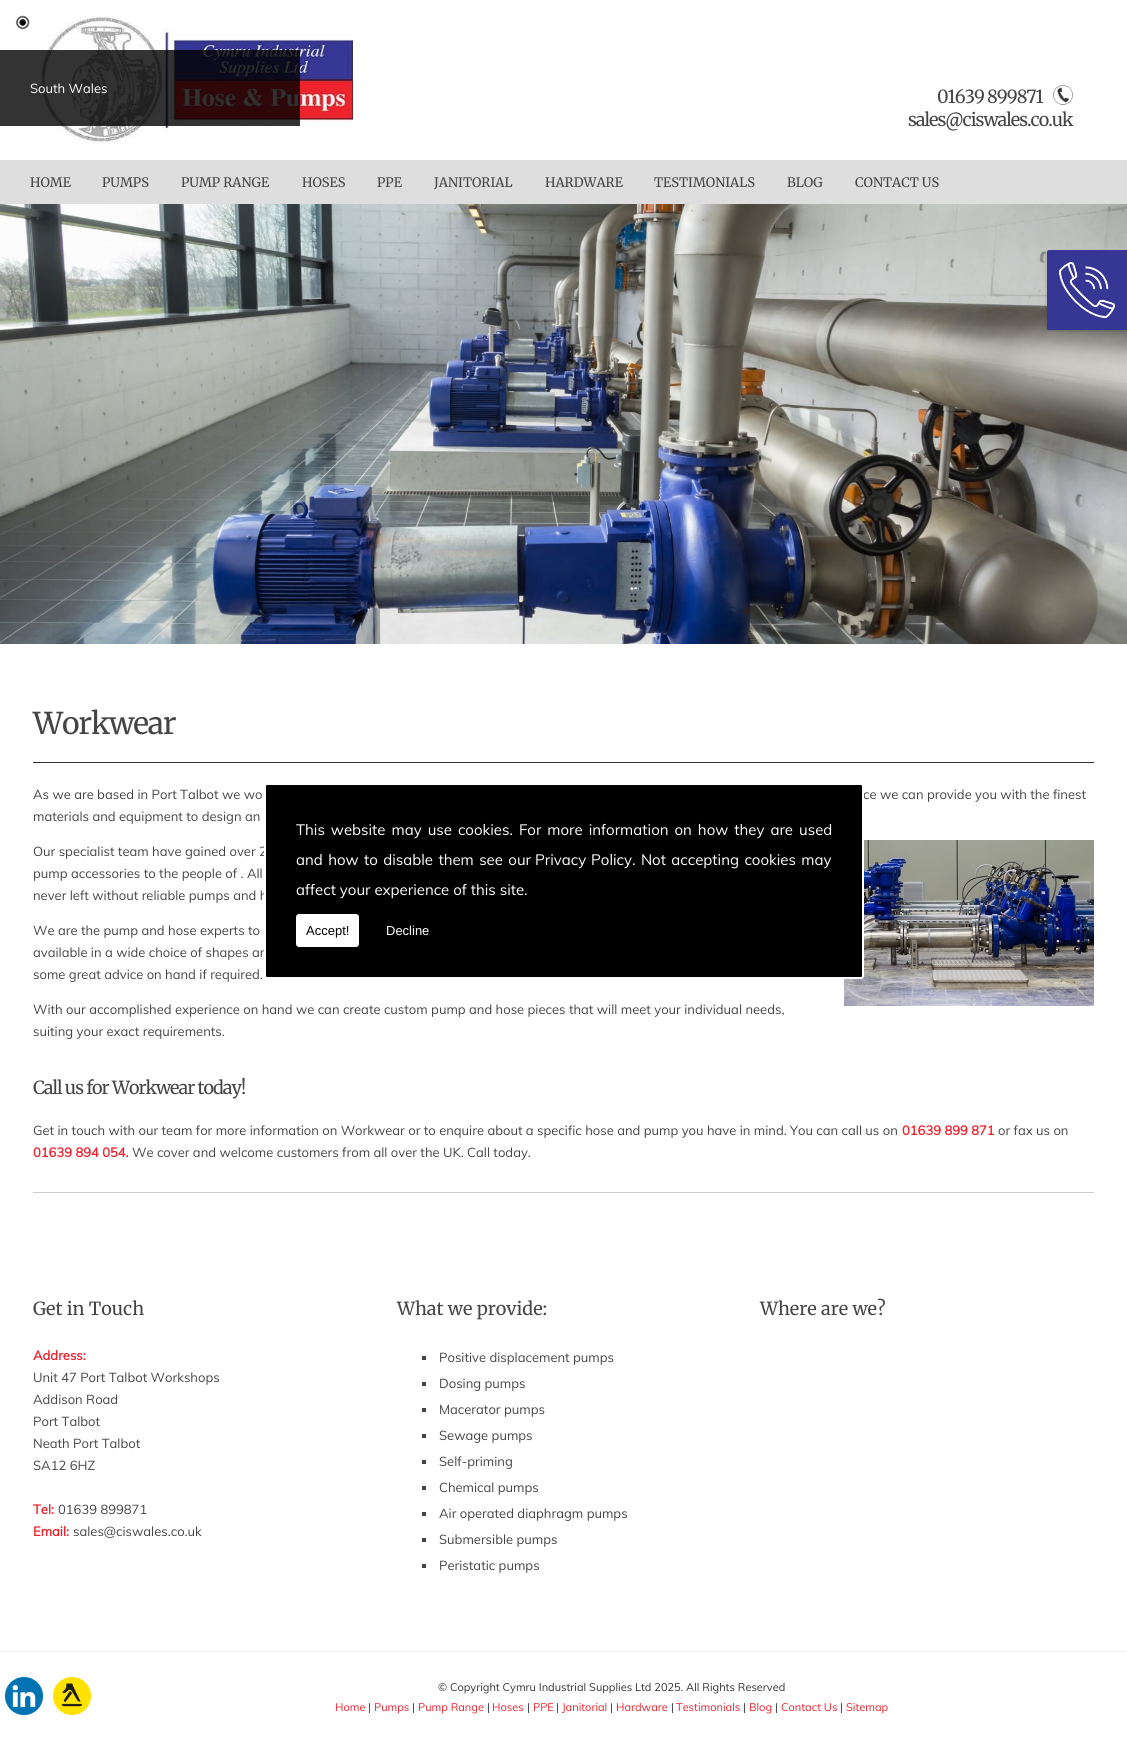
import math
import cairo

surface = cairo.ImageSurface(cairo.FORMAT_RGB24, 1127, 1761)
ctx = cairo.Context(surface)
options = cairo.FontOptions()
options.set_hint_metrics(cairo.HINT_METRICS_OFF)
options.set_hint_style(cairo.HINT_STYLE_NONE)
ctx.set_font_options(options)
ctx.set_miter_limit(4)


def spaced_text(x, y, s, letter, word):
    ctx.move_to(x, y)
    for ch in s:
        ctx.show_text(ch)
        ctx.rel_move_to(letter + word * (ch == ' '), 0)


def round_rect(x, y, w, h, r):
    ctx.new_sub_path()
    for i, (u, v) in enumerate([(x + w - r, y + h - r), (x + r, y + h - r), (x + r, y + r), (x + w - r, y + r)]):
        ctx.arc(u, v, r, i * math.pi / 2, (i + 1) * math.pi / 2)
    ctx.close_path()


def shadow(x, y, w, h, r, blur, alpha):
    ctx.push_group_with_content(cairo.CONTENT_ALPHA)
    ctx.set_operator(cairo.OPERATOR_SOURCE)
    for i in range(15, -16, -2):
        e = blur * i / 6
        if min(w, h) + 2 * e > 0:
            ctx.set_source_rgba(0, 0, 0, alpha * math.erfc((i - 1) / 8.5) / 2)
            round_rect(x - e, y - e, w + 2 * e, h + 2 * e, max(0, min(r + e + blur * .6, min(w, h) / 2 + e)))
            ctx.fill()
    ctx.mask(ctx.pop_group())


def picture(path, x, y, w, h):
    ctx.save()
    ctx.set_source_surface(cairo.ImageSurface.create_from_png(path), x, y)
    ctx.rectangle(x, y, w, h)
    ctx.fill()
    ctx.restore()


ctx.set_source_rgb(1, 1, 1)
ctx.paint()
picture("img1.png", 15, 15, 15, 15)
picture("img2.png", 41, 16, 312, 128)
ctx.set_source_rgba(0, 0, 0, 0.8)
ctx.rectangle(0, 50, 300, 76)
ctx.fill()
ctx.select_font_face("Muli")
ctx.set_font_size(13)
ctx.set_source_rgb(1, 1, 1)
ctx.move_to(30, 93)
ctx.show_text("South Wales")
ctx.select_font_face("Merriweather Light")
ctx.set_font_size(18)
ctx.set_source_rgb(0.271, 0.271, 0.271)
spaced_text(937, 103, "01639 899871", -1, 0)
picture("img3.png", 1053, 85, 20, 20)
spaced_text(908, 126, "sales@ciswales.co.uk", -1, 0)
ctx.set_source_rgb(0.871, 0.871, 0.871)
ctx.rectangle(0, 160, 1127, 44)
ctx.fill()
ctx.set_font_size(13)
ctx.set_source_rgb(0.271, 0.271, 0.271)
ctx.move_to(30, 187)
ctx.show_text("HOME")
ctx.move_to(102, 187)
ctx.show_text("PUMPS")
ctx.move_to(181, 187)
ctx.show_text("PUMP RANGE")
ctx.move_to(302, 187)
ctx.show_text("HOSES")
ctx.move_to(377, 187)
ctx.show_text("PPE")
ctx.move_to(434, 187)
ctx.show_text("JANITORIAL")
ctx.move_to(545, 187)
ctx.show_text("HARDWARE")
ctx.move_to(654, 187)
ctx.show_text("TESTIMONIALS")
ctx.move_to(787, 187)
ctx.show_text("BLOG")
ctx.move_to(855, 187)
ctx.show_text("CONTACT US")
picture("img4.png", 0, 204, 1127, 440)
ctx.set_source_rgb(0, 0, 0)
shadow(1045, 251, 80, 80, 2, 1, 0.1)
ctx.set_source_rgb(0.212, 0.216, 0.58)
ctx.new_path()
ctx.move_to(1049, 250)
ctx.line_to(1127, 250)
ctx.line_to(1127, 330)
ctx.line_to(1049, 330)
ctx.curve_to(1048, 330, 1047, 329, 1047, 328)
ctx.line_to(1047, 252)
ctx.curve_to(1047, 251, 1048, 250, 1049, 250)
ctx.close_path()
ctx.fill()
picture("img5.png", 1059, 262, 56, 56)
ctx.set_source_rgb(0.2, 0.2, 0.2)
ctx.rectangle(33, 762, 1061, 1)
ctx.fill()
ctx.set_font_size(30)
ctx.set_source_rgb(0.271, 0.271, 0.271)
spaced_text(33, 734, "Workwear", -1, 0)
ctx.select_font_face("Muli")
ctx.set_font_size(13)
ctx.move_to(33, 799)
ctx.show_text("As we are based in Port Talbot we wo")
ctx.move_to(863, 799)
ctx.show_text("ce we can provide you with the finest")
ctx.move_to(33, 821)
ctx.show_text("materials and equipment to design an")
ctx.move_to(33, 856)
ctx.show_text("Our specialist team have gained over 2")
ctx.move_to(33, 878)
ctx.show_text("pump accessories to the people of . All")
ctx.move_to(33, 900)
ctx.show_text("never left without reliable pumps and h")
picture("img6.png", 844, 840, 250, 166)
ctx.move_to(33, 935)
ctx.show_text("We are the pump and hose experts to")
ctx.move_to(33, 957)
ctx.show_text("available in a wide choice of shapes an")
ctx.move_to(33, 979)
ctx.show_text("some great advice on hand if required.")
ctx.move_to(33, 1014)
ctx.show_text("With our accomplished experience on hand we can create custom pump and hose pieces that will meet your individual needs,")
ctx.move_to(33, 1036)
ctx.show_text("suiting your exact requirements.")
ctx.select_font_face("Merriweather Light")
ctx.set_font_size(18)
spaced_text(33, 1094, "Call us for Workwear today!", -1, 0)
ctx.select_font_face("Muli")
ctx.set_font_size(13)
ctx.move_to(33, 1135)
ctx.show_text("Get in touch with our team for more information on Workwear or to enquire about a specific hose and pump you have in mind. You can call us on")
ctx.select_font_face("Muli", cairo.FONT_SLANT_NORMAL, cairo.FONT_WEIGHT_BOLD)
ctx.set_source_rgb(0.933, 0.137, 0.176)
ctx.move_to(902, 1135)
ctx.show_text("01639 899 871")
ctx.select_font_face("Muli")
ctx.set_source_rgb(0.271, 0.271, 0.271)
ctx.move_to(998, 1135)
ctx.show_text("or fax us on")
ctx.select_font_face("Muli", cairo.FONT_SLANT_NORMAL, cairo.FONT_WEIGHT_BOLD)
ctx.set_source_rgb(0.933, 0.137, 0.176)
ctx.move_to(33, 1157)
ctx.show_text("01639 894 054.")
ctx.select_font_face("Muli")
ctx.set_source_rgb(0.271, 0.271, 0.271)
ctx.move_to(132, 1157)
ctx.show_text("We cover and welcome customers from all over the UK. Call today.")
ctx.set_source_rgb(0.8, 0.8, 0.8)
ctx.rectangle(33, 1192, 1061, 1)
ctx.fill()
ctx.select_font_face("Merriweather Light")
ctx.set_font_size(18)
ctx.set_source_rgb(0.271, 0.271, 0.271)
ctx.move_to(33, 1315)
ctx.show_text("Get in Touch")
ctx.select_font_face("Muli", cairo.FONT_SLANT_NORMAL, cairo.FONT_WEIGHT_BOLD)
ctx.set_font_size(13)
ctx.set_source_rgb(0.933, 0.137, 0.176)
ctx.move_to(33, 1360)
ctx.show_text("Address:")
ctx.select_font_face("Muli")
ctx.set_source_rgb(0.271, 0.271, 0.271)
ctx.move_to(33, 1382)
ctx.show_text("Unit 47 Port Talbot Workshops")
ctx.move_to(33, 1404)
ctx.show_text("Addison Road")
ctx.move_to(33, 1426)
ctx.show_text("Port Talbot")
ctx.move_to(33, 1448)
ctx.show_text("Neath Port Talbot")
ctx.move_to(33, 1470)
ctx.show_text("SA12 6HZ")
ctx.select_font_face("Muli", cairo.FONT_SLANT_NORMAL, cairo.FONT_WEIGHT_BOLD)
ctx.set_source_rgb(0.933, 0.137, 0.176)
ctx.move_to(33, 1514)
ctx.show_text("Tel:")
ctx.select_font_face("Muli")
ctx.set_source_rgb(0.271, 0.271, 0.271)
ctx.move_to(58, 1514)
ctx.show_text("01639 899871")
ctx.select_font_face("Muli", cairo.FONT_SLANT_NORMAL, cairo.FONT_WEIGHT_BOLD)
ctx.set_source_rgb(0.933, 0.137, 0.176)
ctx.move_to(33, 1536)
ctx.show_text("Email:")
ctx.select_font_face("Muli")
ctx.set_source_rgb(0.271, 0.271, 0.271)
ctx.move_to(73, 1536)
ctx.show_text("sales@ciswales.co.uk")
ctx.select_font_face("Merriweather Light")
ctx.set_font_size(18)
ctx.move_to(397, 1315)
ctx.show_text("What we provide:")
ctx.set_source_rgb(0.267, 0.267, 0.267)
ctx.rectangle(422, 1356, 4, 4)
ctx.fill()
ctx.select_font_face("Muli")
ctx.set_font_size(13)
ctx.set_source_rgb(0.271, 0.271, 0.271)
ctx.move_to(439, 1362)
ctx.show_text("Positive displacement pumps")
ctx.set_source_rgb(0.267, 0.267, 0.267)
ctx.rectangle(422, 1382, 4, 4)
ctx.fill()
ctx.set_source_rgb(0.271, 0.271, 0.271)
ctx.move_to(439, 1388)
ctx.show_text("Dosing pumps")
ctx.set_source_rgb(0.267, 0.267, 0.267)
ctx.rectangle(422, 1408, 4, 4)
ctx.fill()
ctx.set_source_rgb(0.271, 0.271, 0.271)
ctx.move_to(439, 1414)
ctx.show_text("Macerator pumps")
ctx.set_source_rgb(0.267, 0.267, 0.267)
ctx.rectangle(422, 1434, 4, 4)
ctx.fill()
ctx.set_source_rgb(0.271, 0.271, 0.271)
ctx.move_to(439, 1440)
ctx.show_text("Sewage pumps")
ctx.set_source_rgb(0.267, 0.267, 0.267)
ctx.rectangle(422, 1460, 4, 4)
ctx.fill()
ctx.set_source_rgb(0.271, 0.271, 0.271)
ctx.move_to(439, 1466)
ctx.show_text("Self-priming")
ctx.set_source_rgb(0.267, 0.267, 0.267)
ctx.rectangle(422, 1486, 4, 4)
ctx.fill()
ctx.set_source_rgb(0.271, 0.271, 0.271)
ctx.move_to(439, 1492)
ctx.show_text("Chemical pumps")
ctx.set_source_rgb(0.267, 0.267, 0.267)
ctx.rectangle(422, 1512, 4, 4)
ctx.fill()
ctx.set_source_rgb(0.271, 0.271, 0.271)
ctx.move_to(439, 1518)
ctx.show_text("Air operated diaphragm pumps")
ctx.set_source_rgb(0.267, 0.267, 0.267)
ctx.rectangle(422, 1538, 4, 4)
ctx.fill()
ctx.set_source_rgb(0.271, 0.271, 0.271)
ctx.move_to(439, 1544)
ctx.show_text("Submersible pumps")
ctx.set_source_rgb(0.267, 0.267, 0.267)
ctx.rectangle(422, 1564, 4, 4)
ctx.fill()
ctx.set_source_rgb(0.271, 0.271, 0.271)
ctx.move_to(439, 1570)
ctx.show_text("Peristatic pumps")
ctx.select_font_face("Merriweather Light")
ctx.set_font_size(18)
ctx.move_to(760, 1315)
ctx.show_text("Where are we?")
ctx.set_source_rgb(0.933, 0.933, 0.933)
ctx.rectangle(0, 1651, 1127, 1)
ctx.fill()
picture("img7.png", 5, 1677, 38, 38)
picture("img8.png", 53, 1677, 38, 38)
ctx.select_font_face("Muli")
ctx.set_font_size(11)
ctx.set_source_rgb(0.2, 0.2, 0.2)
ctx.move_to(438, 1691)
ctx.show_text("© Copyright Cymru Industrial Supplies Ltd 2025. All Rights Reserved")
ctx.set_source_rgb(0.933, 0.137, 0.176)
ctx.move_to(335, 1711)
ctx.show_text("Home")
ctx.set_source_rgb(0.2, 0.2, 0.2)
ctx.move_to(368, 1711)
ctx.show_text("|")
ctx.set_source_rgb(0.933, 0.137, 0.176)
ctx.move_to(374, 1711)
ctx.show_text("Pumps")
ctx.set_source_rgb(0.2, 0.2, 0.2)
ctx.move_to(412, 1711)
ctx.show_text("|")
ctx.set_source_rgb(0.933, 0.137, 0.176)
ctx.move_to(418, 1711)
ctx.show_text("Pump Range")
ctx.set_source_rgb(0.2, 0.2, 0.2)
ctx.move_to(487, 1711)
ctx.show_text("|")
ctx.set_source_rgb(0.933, 0.137, 0.176)
ctx.move_to(492, 1711)
ctx.show_text("Hoses")
ctx.set_source_rgb(0.2, 0.2, 0.2)
ctx.move_to(527, 1711)
ctx.show_text("|")
ctx.set_source_rgb(0.933, 0.137, 0.176)
ctx.move_to(533, 1711)
ctx.show_text("PPE")
ctx.set_source_rgb(0.2, 0.2, 0.2)
ctx.move_to(556, 1711)
ctx.show_text("|")
ctx.set_source_rgb(0.933, 0.137, 0.176)
ctx.move_to(562, 1711)
ctx.show_text("Janitorial")
ctx.set_source_rgb(0.2, 0.2, 0.2)
ctx.move_to(610, 1711)
ctx.show_text("|")
ctx.set_source_rgb(0.933, 0.137, 0.176)
ctx.move_to(616, 1711)
ctx.show_text("Hardware")
ctx.set_source_rgb(0.2, 0.2, 0.2)
ctx.move_to(671, 1711)
ctx.show_text("|")
ctx.set_source_rgb(0.933, 0.137, 0.176)
ctx.move_to(676, 1711)
ctx.show_text("Testimonials")
ctx.set_source_rgb(0.2, 0.2, 0.2)
ctx.move_to(743, 1711)
ctx.show_text("|")
ctx.set_source_rgb(0.933, 0.137, 0.176)
ctx.move_to(749, 1711)
ctx.show_text("Blog")
ctx.set_source_rgb(0.2, 0.2, 0.2)
ctx.move_to(775, 1711)
ctx.show_text("|")
ctx.set_source_rgb(0.933, 0.137, 0.176)
ctx.move_to(781, 1711)
ctx.show_text("Contact Us")
ctx.set_source_rgb(0.2, 0.2, 0.2)
ctx.move_to(840, 1711)
ctx.show_text("|")
ctx.set_source_rgb(0.933, 0.137, 0.176)
ctx.move_to(846, 1711)
ctx.show_text("Sitemap")
ctx.set_source_rgb(0, 0, 0)
round_rect(265, 784, 598, 194, 2)
ctx.fill_preserve()
ctx.set_source_rgb(1, 1, 1)
ctx.stroke()
ctx.set_font_size(15)
spaced_text(296, 835, "This website may use cookies. For more information on how they are used", 0, 2.1)
spaced_text(296, 865, "and how to disable them see our", 0, 1.5)
spaced_text(535, 865, "Privacy Policy", 0, 1)
spaced_text(632, 865, ". Not accepting cookies may", 0, 1.5)
ctx.move_to(296, 895)
ctx.show_text("affect your experience of this site.")
round_rect(296, 914, 63, 33, 3)
ctx.fill()
ctx.select_font_face("Liberation Sans")
ctx.set_font_size(13)
ctx.set_source_rgb(0, 0, 0)
ctx.move_to(306, 935)
ctx.show_text("Accept!")
ctx.set_source_rgb(1, 1, 1)
ctx.move_to(386, 935)
ctx.show_text("Decline")
surface.write_to_png("page.png")
